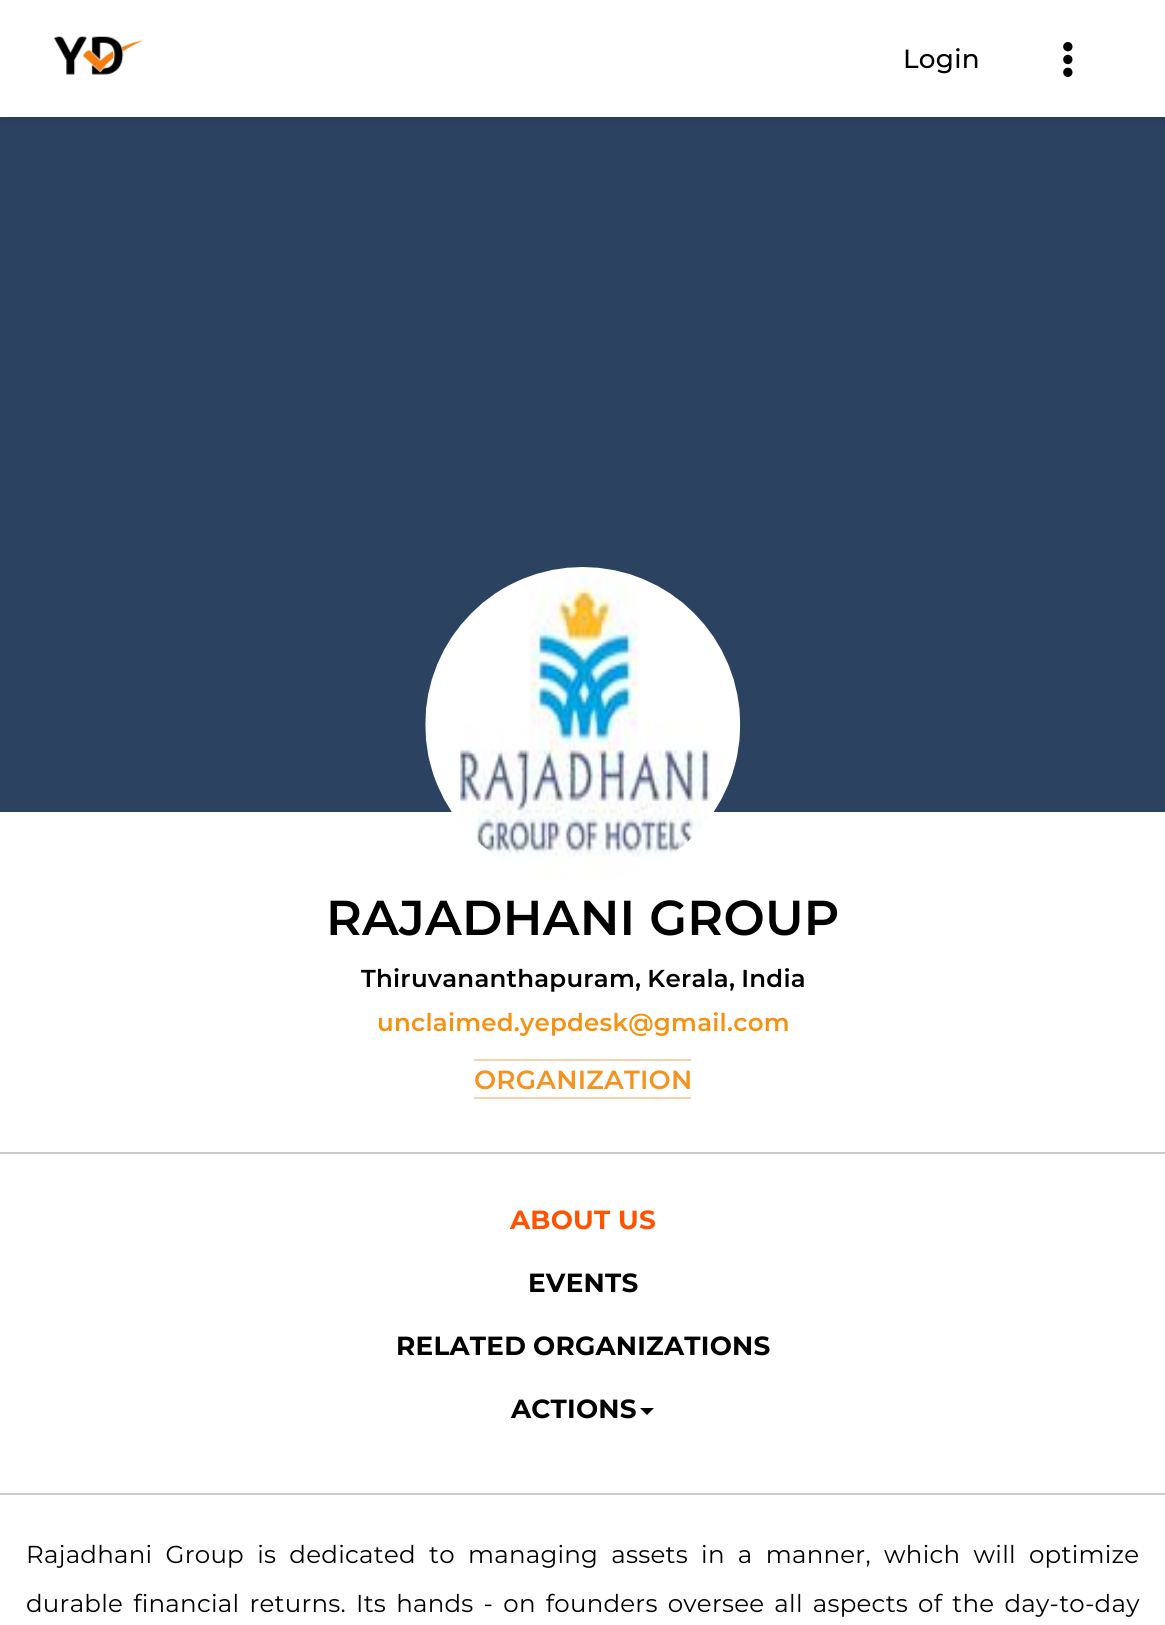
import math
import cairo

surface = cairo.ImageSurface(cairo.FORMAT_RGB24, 1165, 1625)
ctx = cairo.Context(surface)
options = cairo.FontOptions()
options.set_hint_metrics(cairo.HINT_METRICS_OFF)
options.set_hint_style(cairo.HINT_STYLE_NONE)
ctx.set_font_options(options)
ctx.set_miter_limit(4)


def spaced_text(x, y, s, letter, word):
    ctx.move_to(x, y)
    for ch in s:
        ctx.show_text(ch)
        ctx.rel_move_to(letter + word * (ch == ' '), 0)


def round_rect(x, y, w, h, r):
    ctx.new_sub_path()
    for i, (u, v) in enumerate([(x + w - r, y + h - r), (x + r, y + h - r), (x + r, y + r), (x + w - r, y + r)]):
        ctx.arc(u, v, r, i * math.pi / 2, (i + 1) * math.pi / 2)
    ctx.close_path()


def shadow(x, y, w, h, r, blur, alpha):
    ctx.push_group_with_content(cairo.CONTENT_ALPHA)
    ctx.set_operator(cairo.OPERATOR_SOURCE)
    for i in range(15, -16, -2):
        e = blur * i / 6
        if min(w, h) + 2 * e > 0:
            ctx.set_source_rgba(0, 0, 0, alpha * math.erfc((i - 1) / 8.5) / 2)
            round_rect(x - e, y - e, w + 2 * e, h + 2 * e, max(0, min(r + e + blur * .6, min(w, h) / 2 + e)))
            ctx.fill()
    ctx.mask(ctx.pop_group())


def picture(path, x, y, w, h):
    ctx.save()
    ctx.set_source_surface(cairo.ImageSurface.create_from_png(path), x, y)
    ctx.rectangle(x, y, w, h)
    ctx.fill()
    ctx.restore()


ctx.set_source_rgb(1, 1, 1)
ctx.paint()
ctx.set_source_rgb(0.173, 0.259, 0.38)
ctx.rectangle(0, 117, 1165, 695)
ctx.fill()
ctx.set_source_rgb(0, 0, 0)
shadow(0, 2, 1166, 117, 0, 4.5, 0.1)
ctx.set_source_rgb(1, 1, 1)
ctx.rectangle(0, 0, 1165, 117)
ctx.fill()
picture("img1.png", 54, 36, 89, 39)
ctx.select_font_face("Montserrat Medium")
ctx.set_font_size(26.25)
ctx.set_source_rgb(0, 0, 0)
spaced_text(903, 68, "Login", 0.25, 0)
picture("img2.png", 1063, 42, 10, 35)
picture("img3.png", 425, 567, 316, 312)
ctx.select_font_face("Montserrat SemiBold")
ctx.set_font_size(49)
spaced_text(326, 935, "RAJADHANI GROUP", 0.25, 0)
ctx.set_font_size(24.5)
spaced_text(361, 987, "Thiruvananthapuram, Kerala, India", 0.25, -1)
ctx.set_source_rgb(0.961, 0.573, 0.067)
spaced_text(377, 1031, "unclaimed.yepdesk@gmail.com", 0.25, 0)
ctx.set_source_rgb(0.949, 0.824, 0.678)
ctx.rectangle(474, 1059, 217, 2)
ctx.fill()
ctx.rectangle(474, 1097, 217, 2)
ctx.fill()
ctx.set_font_size(26.25)
ctx.set_source_rgb(0.957, 0.576, 0.122)
spaced_text(474, 1089, "ORGANIZATION", 0.25, 0)
ctx.set_source_rgb(0.8, 0.792, 0.792)
ctx.rectangle(0, 1152, 1165, 2)
ctx.fill()
ctx.select_font_face("Montserrat", cairo.FONT_SLANT_NORMAL, cairo.FONT_WEIGHT_BOLD)
ctx.set_source_rgb(1, 0.325, 0.004)
spaced_text(510, 1229, "ABOUT", 0.25, 0)
spaced_text(618, 1229, "US", 0.25, 0)
ctx.set_source_rgb(0, 0, 0)
spaced_text(528, 1292, "EVENTS", 0.25, 0)
spaced_text(396, 1355, "RELATED", 0.25, 0)
spaced_text(533, 1355, "ORGANIZATIONS", 0.25, 0)
spaced_text(511, 1418, "ACTIONS", 0.25, 0)
ctx.new_path()
ctx.move_to(640, 1408)
ctx.line_to(654, 1408)
ctx.line_to(647, 1415)
ctx.close_path()
ctx.fill()
ctx.set_source_rgb(0.8, 0.792, 0.792)
ctx.rectangle(0, 1493, 1165, 2)
ctx.fill()
ctx.select_font_face("Montserrat")
ctx.set_font_size(24.5)
ctx.set_source_rgb(0, 0, 0)
spaced_text(26, 1563, "Rajadhani Group is dedicated to managing assets in a manner, which will optimize", 0.25, 6.5)
spaced_text(26, 1612, "durable financial returns. Its hands - on founders oversee all aspects of the day-to-day", 0.25, 3.4)
surface.write_to_png("page.png")
